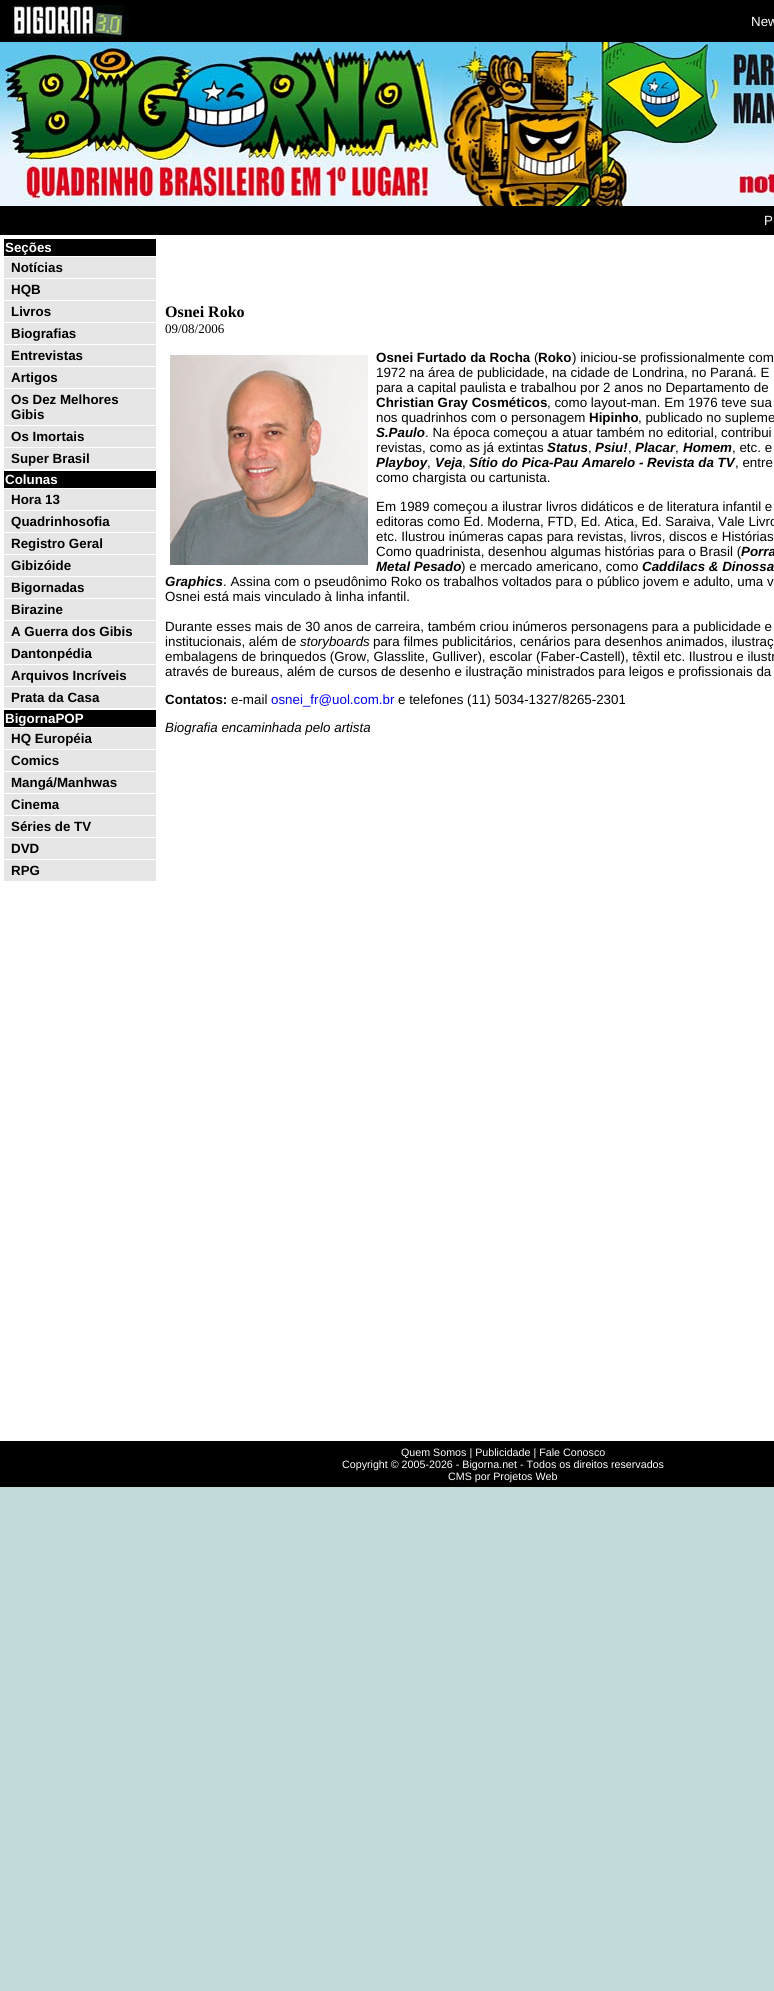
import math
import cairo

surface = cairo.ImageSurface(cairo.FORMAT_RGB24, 774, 1991)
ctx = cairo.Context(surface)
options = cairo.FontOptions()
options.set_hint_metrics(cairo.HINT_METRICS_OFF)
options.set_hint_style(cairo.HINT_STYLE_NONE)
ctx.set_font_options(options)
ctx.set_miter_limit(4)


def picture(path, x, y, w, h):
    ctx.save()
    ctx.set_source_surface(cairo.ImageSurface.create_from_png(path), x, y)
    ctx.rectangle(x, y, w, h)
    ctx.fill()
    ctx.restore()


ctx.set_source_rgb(0.753, 0.851, 0.851)
ctx.paint()
ctx.set_source_rgb(0, 0, 0)
ctx.rectangle(0, 0, 774, 42)
ctx.fill()
picture("img1.png", 12, 5, 117, 32)
ctx.select_font_face("Liberation Sans")
ctx.set_font_size(13.35)
ctx.set_source_rgb(1, 1, 1)
ctx.move_to(751, 26)
ctx.show_text("New")
picture("img2.png", 0, 42, 774, 164)
ctx.set_source_rgb(0, 0, 0)
ctx.rectangle(0, 206, 774, 29)
ctx.fill()
ctx.set_source_rgb(1, 1, 1)
ctx.move_to(764, 225)
ctx.show_text("P")
ctx.rectangle(0, 235, 774, 1206)
ctx.fill()
ctx.set_source_rgb(0, 0, 0)
ctx.rectangle(4, 239, 152, 17)
ctx.fill()
ctx.select_font_face("Liberation Sans", cairo.FONT_SLANT_NORMAL, cairo.FONT_WEIGHT_BOLD)
ctx.set_source_rgb(1, 1, 1)
ctx.move_to(5, 252)
ctx.show_text("Seções")
ctx.set_source_rgb(0.902, 0.902, 0.902)
ctx.rectangle(4, 257, 152, 21)
ctx.fill()
ctx.set_source_rgb(0, 0, 0)
ctx.move_to(11, 272)
ctx.show_text("Notícias")
ctx.set_source_rgb(0.902, 0.902, 0.902)
ctx.rectangle(4, 279, 152, 21)
ctx.fill()
ctx.set_source_rgb(0, 0, 0)
ctx.move_to(11, 294)
ctx.show_text("HQB")
ctx.set_source_rgb(0.902, 0.902, 0.902)
ctx.rectangle(4, 301, 152, 21)
ctx.fill()
ctx.set_source_rgb(0, 0, 0)
ctx.move_to(11, 316)
ctx.show_text("Livros")
ctx.set_source_rgb(0.902, 0.902, 0.902)
ctx.rectangle(4, 323, 152, 21)
ctx.fill()
ctx.set_source_rgb(0, 0, 0)
ctx.move_to(11, 338)
ctx.show_text("Biografias")
ctx.set_source_rgb(0.902, 0.902, 0.902)
ctx.rectangle(4, 345, 152, 21)
ctx.fill()
ctx.set_source_rgb(0, 0, 0)
ctx.move_to(11, 360)
ctx.show_text("Entrevistas")
ctx.set_source_rgb(0.902, 0.902, 0.902)
ctx.rectangle(4, 367, 152, 21)
ctx.fill()
ctx.set_source_rgb(0, 0, 0)
ctx.move_to(11, 382)
ctx.show_text("Artigos")
ctx.set_source_rgb(0.902, 0.902, 0.902)
ctx.rectangle(4, 389, 152, 36)
ctx.fill()
ctx.set_source_rgb(0, 0, 0)
ctx.move_to(11, 404)
ctx.show_text("Os Dez Melhores")
ctx.move_to(11, 419)
ctx.show_text("Gibis")
ctx.set_source_rgb(0.902, 0.902, 0.902)
ctx.rectangle(4, 426, 152, 21)
ctx.fill()
ctx.set_source_rgb(0, 0, 0)
ctx.move_to(11, 441)
ctx.show_text("Os Imortais")
ctx.set_source_rgb(0.902, 0.902, 0.902)
ctx.rectangle(4, 448, 152, 21)
ctx.fill()
ctx.set_source_rgb(0, 0, 0)
ctx.move_to(11, 463)
ctx.show_text("Super Brasil")
ctx.rectangle(4, 471, 152, 17)
ctx.fill()
ctx.set_source_rgb(1, 1, 1)
ctx.move_to(5, 484)
ctx.show_text("Colunas")
ctx.set_source_rgb(0.902, 0.902, 0.902)
ctx.rectangle(4, 489, 152, 21)
ctx.fill()
ctx.set_source_rgb(0, 0, 0)
ctx.move_to(11, 504)
ctx.show_text("Hora 13")
ctx.set_source_rgb(0.902, 0.902, 0.902)
ctx.rectangle(4, 511, 152, 21)
ctx.fill()
ctx.set_source_rgb(0, 0, 0)
ctx.move_to(11, 526)
ctx.show_text("Quadrinhosofia")
ctx.set_source_rgb(0.902, 0.902, 0.902)
ctx.rectangle(4, 533, 152, 21)
ctx.fill()
ctx.set_source_rgb(0, 0, 0)
ctx.move_to(11, 548)
ctx.show_text("Registro Geral")
ctx.set_source_rgb(0.902, 0.902, 0.902)
ctx.rectangle(4, 555, 152, 21)
ctx.fill()
ctx.set_source_rgb(0, 0, 0)
ctx.move_to(11, 570)
ctx.show_text("Gibizóide")
ctx.set_source_rgb(0.902, 0.902, 0.902)
ctx.rectangle(4, 577, 152, 21)
ctx.fill()
ctx.set_source_rgb(0, 0, 0)
ctx.move_to(11, 592)
ctx.show_text("Bigornadas")
ctx.set_source_rgb(0.902, 0.902, 0.902)
ctx.rectangle(4, 599, 152, 21)
ctx.fill()
ctx.set_source_rgb(0, 0, 0)
ctx.move_to(11, 614)
ctx.show_text("Birazine")
ctx.set_source_rgb(0.902, 0.902, 0.902)
ctx.rectangle(4, 621, 152, 21)
ctx.fill()
ctx.set_source_rgb(0, 0, 0)
ctx.move_to(11, 636)
ctx.show_text("A Guerra dos Gibis")
ctx.set_source_rgb(0.902, 0.902, 0.902)
ctx.rectangle(4, 643, 152, 21)
ctx.fill()
ctx.set_source_rgb(0, 0, 0)
ctx.move_to(11, 658)
ctx.show_text("Dantonpédia")
ctx.set_source_rgb(0.902, 0.902, 0.902)
ctx.rectangle(4, 665, 152, 21)
ctx.fill()
ctx.set_source_rgb(0, 0, 0)
ctx.move_to(11, 680)
ctx.show_text("Arquivos Incríveis")
ctx.set_source_rgb(0.902, 0.902, 0.902)
ctx.rectangle(4, 687, 152, 21)
ctx.fill()
ctx.set_source_rgb(0, 0, 0)
ctx.move_to(11, 702)
ctx.show_text("Prata da Casa")
ctx.rectangle(4, 710, 152, 17)
ctx.fill()
ctx.set_source_rgb(1, 1, 1)
ctx.move_to(5, 723)
ctx.show_text("BigornaPOP")
ctx.set_source_rgb(0.902, 0.902, 0.902)
ctx.rectangle(4, 728, 152, 21)
ctx.fill()
ctx.set_source_rgb(0, 0, 0)
ctx.move_to(11, 743)
ctx.show_text("HQ Européia")
ctx.set_source_rgb(0.902, 0.902, 0.902)
ctx.rectangle(4, 750, 152, 21)
ctx.fill()
ctx.set_source_rgb(0, 0, 0)
ctx.move_to(11, 765)
ctx.show_text("Comics")
ctx.set_source_rgb(0.902, 0.902, 0.902)
ctx.rectangle(4, 772, 152, 21)
ctx.fill()
ctx.set_source_rgb(0, 0, 0)
ctx.move_to(11, 787)
ctx.show_text("Mangá/Manhwas")
ctx.set_source_rgb(0.902, 0.902, 0.902)
ctx.rectangle(4, 794, 152, 21)
ctx.fill()
ctx.set_source_rgb(0, 0, 0)
ctx.move_to(11, 809)
ctx.show_text("Cinema")
ctx.set_source_rgb(0.902, 0.902, 0.902)
ctx.rectangle(4, 816, 152, 21)
ctx.fill()
ctx.set_source_rgb(0, 0, 0)
ctx.move_to(11, 831)
ctx.show_text("Séries de TV")
ctx.set_source_rgb(0.902, 0.902, 0.902)
ctx.rectangle(4, 838, 152, 21)
ctx.fill()
ctx.set_source_rgb(0, 0, 0)
ctx.move_to(11, 853)
ctx.show_text("DVD")
ctx.set_source_rgb(0.902, 0.902, 0.902)
ctx.rectangle(4, 860, 152, 21)
ctx.fill()
ctx.set_source_rgb(0, 0, 0)
ctx.move_to(11, 875)
ctx.show_text("RPG")
ctx.select_font_face("Liberation Serif", cairo.FONT_SLANT_NORMAL, cairo.FONT_WEIGHT_BOLD)
ctx.set_font_size(16)
ctx.move_to(165, 317)
ctx.show_text("Osnei Roko")
ctx.select_font_face("Liberation Serif")
ctx.set_font_size(13)
ctx.move_to(165, 333)
ctx.show_text("09/08/2006")
picture("img3.png", 165, 350, 208, 216)
ctx.select_font_face("Liberation Sans", cairo.FONT_SLANT_NORMAL, cairo.FONT_WEIGHT_BOLD)
ctx.set_font_size(13.35)
ctx.move_to(376, 362)
ctx.show_text("Osnei Furtado da Rocha")
ctx.select_font_face("Liberation Sans")
ctx.move_to(534, 362)
ctx.show_text("(")
ctx.select_font_face("Liberation Sans", cairo.FONT_SLANT_NORMAL, cairo.FONT_WEIGHT_BOLD)
ctx.move_to(538, 362)
ctx.show_text("Roko")
ctx.select_font_face("Liberation Sans")
ctx.move_to(572, 362)
ctx.show_text(") iniciou-se profissionalmente com")
ctx.move_to(376, 377)
ctx.show_text("1972 na área de publicidade, na cidade de Londrina, no Paraná. E")
ctx.move_to(376, 392)
ctx.show_text("para a capital paulista e trabalhou por 2 anos no Departamento de")
ctx.select_font_face("Liberation Sans", cairo.FONT_SLANT_NORMAL, cairo.FONT_WEIGHT_BOLD)
ctx.move_to(376, 407)
ctx.show_text("Christian Gray Cosméticos")
ctx.select_font_face("Liberation Sans")
ctx.move_to(547, 407)
ctx.show_text(", como layout-man. Em 1976 teve sua")
ctx.move_to(376, 422)
ctx.show_text("nos quadrinhos com o personagem")
ctx.select_font_face("Liberation Sans", cairo.FONT_SLANT_NORMAL, cairo.FONT_WEIGHT_BOLD)
ctx.move_to(589, 422)
ctx.show_text("Hipinho")
ctx.select_font_face("Liberation Sans")
ctx.move_to(638, 422)
ctx.show_text(", publicado no supleme")
ctx.select_font_face("Liberation Sans", cairo.FONT_SLANT_ITALIC, cairo.FONT_WEIGHT_BOLD)
ctx.move_to(376, 437)
ctx.show_text("S.Paulo")
ctx.select_font_face("Liberation Sans")
ctx.move_to(425, 437)
ctx.show_text(". Na época começou a atuar também no editorial, contribui")
ctx.move_to(376, 452)
ctx.show_text("revistas, como as já extintas")
ctx.select_font_face("Liberation Sans", cairo.FONT_SLANT_ITALIC, cairo.FONT_WEIGHT_BOLD)
ctx.move_to(547, 452)
ctx.show_text("Status")
ctx.select_font_face("Liberation Sans")
ctx.move_to(588, 452)
ctx.show_text(",")
ctx.select_font_face("Liberation Sans", cairo.FONT_SLANT_ITALIC, cairo.FONT_WEIGHT_BOLD)
ctx.move_to(595, 452)
ctx.show_text("Psiu!")
ctx.select_font_face("Liberation Sans")
ctx.move_to(628, 452)
ctx.show_text(",")
ctx.select_font_face("Liberation Sans", cairo.FONT_SLANT_ITALIC, cairo.FONT_WEIGHT_BOLD)
ctx.move_to(635, 452)
ctx.show_text("Placar")
ctx.select_font_face("Liberation Sans")
ctx.move_to(675, 452)
ctx.show_text(",")
ctx.select_font_face("Liberation Sans", cairo.FONT_SLANT_ITALIC, cairo.FONT_WEIGHT_BOLD)
ctx.move_to(683, 452)
ctx.show_text("Homem")
ctx.select_font_face("Liberation Sans")
ctx.move_to(732, 452)
ctx.show_text(", etc. e")
ctx.select_font_face("Liberation Sans", cairo.FONT_SLANT_ITALIC, cairo.FONT_WEIGHT_BOLD)
ctx.move_to(376, 467)
ctx.show_text("Playboy")
ctx.select_font_face("Liberation Sans")
ctx.move_to(427, 467)
ctx.show_text(",")
ctx.select_font_face("Liberation Sans", cairo.FONT_SLANT_ITALIC, cairo.FONT_WEIGHT_BOLD)
ctx.move_to(435, 467)
ctx.show_text("Veja")
ctx.select_font_face("Liberation Sans")
ctx.move_to(462, 467)
ctx.show_text(",")
ctx.select_font_face("Liberation Sans", cairo.FONT_SLANT_ITALIC, cairo.FONT_WEIGHT_BOLD)
ctx.move_to(469, 467)
ctx.show_text("Sítio do Pica-Pau Amarelo - Revista da TV")
ctx.select_font_face("Liberation Sans")
ctx.move_to(735, 467)
ctx.show_text(", entre")
ctx.move_to(376, 482)
ctx.show_text("como chargista ou cartunista.")
ctx.move_to(376, 511)
ctx.show_text("Em 1989 começou a ilustrar livros didáticos e de literatura infantil e")
ctx.move_to(376, 526)
ctx.show_text("editoras como Ed. Moderna, FTD, Ed. Atica, Ed. Saraiva, Vale Livro")
ctx.move_to(376, 541)
ctx.show_text("etc. Ilustrou inúmeras capas para revistas, livros, discos e Histórias")
ctx.move_to(376, 556)
ctx.show_text("Como quadrinista, desenhou algumas histórias para o Brasil (")
ctx.select_font_face("Liberation Sans", cairo.FONT_SLANT_ITALIC, cairo.FONT_WEIGHT_BOLD)
ctx.move_to(741, 556)
ctx.show_text("Porra")
ctx.move_to(376, 571)
ctx.show_text("Metal Pesado")
ctx.select_font_face("Liberation Sans")
ctx.move_to(461, 571)
ctx.show_text(") e mercado americano, como")
ctx.select_font_face("Liberation Sans", cairo.FONT_SLANT_ITALIC, cairo.FONT_WEIGHT_BOLD)
ctx.move_to(642, 571)
ctx.show_text("Caddilacs & Dinossa")
ctx.move_to(165, 586)
ctx.show_text("Graphics")
ctx.select_font_face("Liberation Sans")
ctx.move_to(223, 586)
ctx.show_text(". Assina com o pseudônimo Roko os trabalhos voltados para o público jovem e adulto, uma v")
ctx.move_to(165, 601)
ctx.show_text("Osnei está mais vinculado à linha infantil.")
ctx.move_to(165, 631)
ctx.show_text("Durante esses mais de 30 anos de carreira, também criou inúmeros personagens para a publicidade e")
ctx.move_to(165, 646)
ctx.show_text("institucionais, além de")
ctx.select_font_face("Liberation Sans", cairo.FONT_SLANT_ITALIC)
ctx.move_to(300, 646)
ctx.show_text("storyboards")
ctx.select_font_face("Liberation Sans")
ctx.move_to(373, 646)
ctx.show_text("para filmes publicitários, cenários para desenhos animados, ilustraç")
ctx.move_to(165, 661)
ctx.show_text("embalagens de brinquedos (Grow, Glasslite, Gulliver), escolar (Faber-Castell), têxtil etc. Ilustrou e ilustr")
ctx.move_to(165, 676)
ctx.show_text("através de bureaus, além de cursos de desenho e ilustração ministrados para leigos e profissionais da")
ctx.select_font_face("Liberation Sans", cairo.FONT_SLANT_NORMAL, cairo.FONT_WEIGHT_BOLD)
ctx.move_to(165, 704)
ctx.show_text("Contatos:")
ctx.select_font_face("Liberation Sans")
ctx.move_to(231, 704)
ctx.show_text("e-mail")
ctx.set_source_rgb(0, 0, 0.933)
ctx.move_to(271, 704)
ctx.show_text("osnei_fr@uol.com.br")
ctx.set_source_rgb(0, 0, 0)
ctx.move_to(398, 704)
ctx.show_text("e telefones (11) 5034-1327/8265-2301")
ctx.select_font_face("Liberation Sans", cairo.FONT_SLANT_ITALIC)
ctx.move_to(165, 732)
ctx.show_text("Biografia encaminhada pelo artista")
ctx.rectangle(0, 1441, 774, 46)
ctx.fill()
ctx.select_font_face("Liberation Sans")
ctx.set_font_size(10.7)
ctx.set_source_rgb(1, 1, 1)
ctx.move_to(401, 1456)
ctx.show_text("Quem Somos | Publicidade | Fale Conosco")
ctx.move_to(342, 1468)
ctx.show_text("Copyright © 2005-2026 - Bigorna.net - Todos os direitos reservados")
ctx.move_to(448, 1480)
ctx.show_text("CMS por Projetos Web")
surface.write_to_png("page.png")
